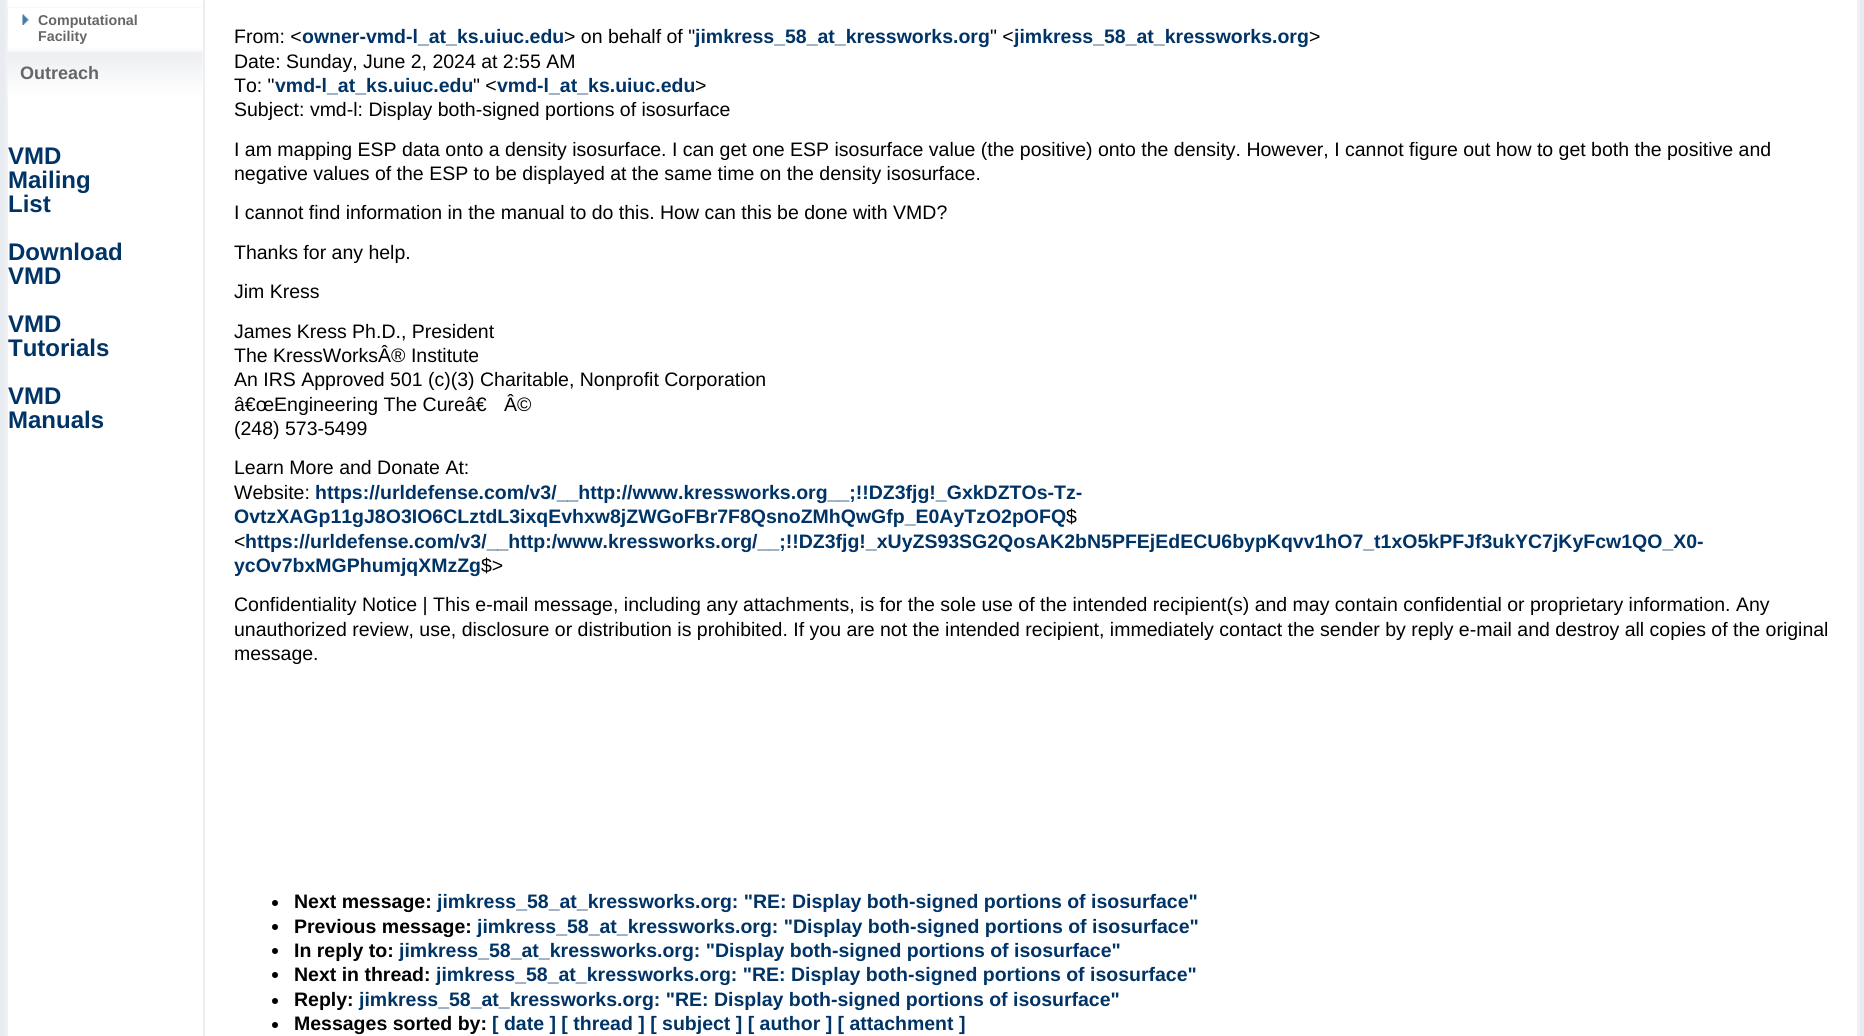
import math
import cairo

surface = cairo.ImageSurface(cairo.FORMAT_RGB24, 1864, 1036)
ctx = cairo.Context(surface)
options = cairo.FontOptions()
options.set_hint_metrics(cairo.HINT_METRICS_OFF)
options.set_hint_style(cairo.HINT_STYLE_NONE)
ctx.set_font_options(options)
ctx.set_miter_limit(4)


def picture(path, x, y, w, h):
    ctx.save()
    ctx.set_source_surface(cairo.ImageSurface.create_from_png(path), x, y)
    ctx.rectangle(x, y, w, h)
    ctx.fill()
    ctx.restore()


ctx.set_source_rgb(0.91, 0.922, 0.945)
ctx.paint()
ctx.set_source_rgb(1, 1, 1)
ctx.rectangle(8, 0, 1849, 1036)
ctx.fill()
ctx.set_source_rgb(0.941, 0.941, 0.949)
ctx.rectangle(1857, 0, 3, 1036)
ctx.fill()
ctx.rectangle(5, 0, 3, 1036)
ctx.fill()
ctx.set_source_rgb(0.965, 0.965, 0.969)
ctx.rectangle(7, 0, 1, 7)
ctx.fill()
picture("img1.png", 7, 7, 196, 43)
ctx.set_source_rgb(1, 1, 1)
ctx.rectangle(8, 8, 195, 39)
ctx.fill()
picture("img2.png", 22, 14, 7, 11)
ctx.select_font_face("Liberation Sans", cairo.FONT_SLANT_NORMAL, cairo.FONT_WEIGHT_BOLD)
ctx.set_font_size(14.25)
ctx.set_source_rgb(0.4, 0.4, 0.4)
ctx.move_to(38, 25)
ctx.show_text("Computational")
ctx.move_to(38, 41)
ctx.show_text("Facility")
picture("img3.png", 7, 50, 196, 47)
ctx.set_font_size(18)
ctx.move_to(20, 79)
ctx.show_text("Outreach")
ctx.set_font_size(24)
ctx.set_source_rgb(0, 0.2, 0.4)
ctx.move_to(8, 164)
ctx.show_text("VMD")
ctx.move_to(8, 188)
ctx.show_text("Mailing")
ctx.move_to(8, 212)
ctx.show_text("List")
ctx.move_to(8, 260)
ctx.show_text("Download")
ctx.move_to(8, 284)
ctx.show_text("VMD")
ctx.move_to(8, 332)
ctx.show_text("VMD")
ctx.move_to(8, 356)
ctx.show_text("Tutorials")
ctx.move_to(8, 404)
ctx.show_text("VMD")
ctx.move_to(8, 428)
ctx.show_text("Manuals")
ctx.set_source_rgb(0.933, 0.933, 0.933)
ctx.rectangle(203, 0, 2, 1036)
ctx.fill()
ctx.select_font_face("Liberation Sans")
ctx.set_font_size(19.5)
ctx.set_source_rgb(0, 0, 0)
ctx.move_to(234, 43)
ctx.show_text("From: <")
ctx.select_font_face("Liberation Sans", cairo.FONT_SLANT_NORMAL, cairo.FONT_WEIGHT_BOLD)
ctx.set_source_rgb(0, 0.2, 0.4)
ctx.move_to(302, 43)
ctx.show_text("owner-vmd-l_at_ks.uiuc.edu")
ctx.select_font_face("Liberation Sans")
ctx.set_source_rgb(0, 0, 0)
ctx.move_to(564, 43)
ctx.show_text("> on behalf of \"")
ctx.select_font_face("Liberation Sans", cairo.FONT_SLANT_NORMAL, cairo.FONT_WEIGHT_BOLD)
ctx.set_source_rgb(0, 0.2, 0.4)
ctx.move_to(695, 43)
ctx.show_text("jimkress_58_at_kressworks.org")
ctx.select_font_face("Liberation Sans")
ctx.set_source_rgb(0, 0, 0)
ctx.move_to(990, 43)
ctx.show_text("\" <")
ctx.select_font_face("Liberation Sans", cairo.FONT_SLANT_NORMAL, cairo.FONT_WEIGHT_BOLD)
ctx.set_source_rgb(0, 0.2, 0.4)
ctx.move_to(1014, 43)
ctx.show_text("jimkress_58_at_kressworks.org")
ctx.select_font_face("Liberation Sans")
ctx.set_source_rgb(0, 0, 0)
ctx.move_to(1309, 43)
ctx.show_text(">")
ctx.move_to(234, 68)
ctx.show_text("Date: Sunday, June 2, 2024 at 2:55 AM")
ctx.move_to(234, 92)
ctx.show_text("To: \"")
ctx.select_font_face("Liberation Sans", cairo.FONT_SLANT_NORMAL, cairo.FONT_WEIGHT_BOLD)
ctx.set_source_rgb(0, 0.2, 0.4)
ctx.move_to(275, 92)
ctx.show_text("vmd-l_at_ks.uiuc.edu")
ctx.select_font_face("Liberation Sans")
ctx.set_source_rgb(0, 0, 0)
ctx.move_to(473, 92)
ctx.show_text("\" <")
ctx.select_font_face("Liberation Sans", cairo.FONT_SLANT_NORMAL, cairo.FONT_WEIGHT_BOLD)
ctx.set_source_rgb(0, 0.2, 0.4)
ctx.move_to(497, 92)
ctx.show_text("vmd-l_at_ks.uiuc.edu")
ctx.select_font_face("Liberation Sans")
ctx.set_source_rgb(0, 0, 0)
ctx.move_to(695, 92)
ctx.show_text(">")
ctx.move_to(234, 116)
ctx.show_text("Subject: vmd-l: Display both-signed portions of isosurface")
ctx.move_to(234, 156)
ctx.show_text("I am mapping ESP data onto a density isosurface. I can get one ESP isosurface value (the positive) onto the density. However, I cannot figure out how to get both the positive and")
ctx.move_to(234, 180)
ctx.show_text("negative values of the ESP to be displayed at the same time on the density isosurface.")
ctx.move_to(234, 219)
ctx.show_text("I cannot find information in the manual to do this. How can this be done with VMD?")
ctx.move_to(234, 259)
ctx.show_text("Thanks for any help.")
ctx.move_to(234, 298)
ctx.show_text("Jim Kress")
ctx.move_to(234, 338)
ctx.show_text("James Kress Ph.D., President")
ctx.move_to(234, 362)
ctx.show_text("The KressWorksÂ® Institute")
ctx.move_to(234, 386)
ctx.show_text("An IRS Approved 501 (c)(3) Charitable, Nonprofit Corporation")
ctx.move_to(234, 411)
ctx.show_text("â€œEngineering The Cureâ€")
ctx.move_to(504, 411)
ctx.show_text("Â©")
ctx.move_to(234, 435)
ctx.show_text("(248) 573-5499")
ctx.move_to(234, 474)
ctx.show_text("Learn More and Donate At:")
ctx.move_to(234, 499)
ctx.show_text("Website:")
ctx.select_font_face("Liberation Sans", cairo.FONT_SLANT_NORMAL, cairo.FONT_WEIGHT_BOLD)
ctx.set_source_rgb(0, 0.2, 0.4)
ctx.move_to(315, 499)
ctx.show_text("https://urldefense.com/v3/__http://www.kressworks.org__;!!DZ3fjg!_GxkDZTOs-Tz-")
ctx.move_to(234, 523)
ctx.show_text("OvtzXAGp11gJ8O3IO6CLztdL3ixqEvhxw8jZWGoFBr7F8QsnoZMhQwGfp_E0AyTzO2pOFQ")
ctx.select_font_face("Liberation Sans")
ctx.set_source_rgb(0, 0, 0)
ctx.move_to(1066, 523)
ctx.show_text("$")
ctx.move_to(234, 548)
ctx.show_text("<")
ctx.select_font_face("Liberation Sans", cairo.FONT_SLANT_NORMAL, cairo.FONT_WEIGHT_BOLD)
ctx.set_source_rgb(0, 0.2, 0.4)
ctx.move_to(245, 548)
ctx.show_text("https://urldefense.com/v3/__http:/www.kressworks.org/__;!!DZ3fjg!_xUyZS93SG2QosAK2bN5PFEjEdECU6bypKqvv1hO7_t1xO5kPFJf3ukYC7jKyFcw1QO_X0-")
ctx.move_to(234, 572)
ctx.show_text("ycOv7bxMGPhumjqXMzZg")
ctx.select_font_face("Liberation Sans")
ctx.set_source_rgb(0, 0, 0)
ctx.move_to(481, 572)
ctx.show_text("$>")
ctx.move_to(234, 611)
ctx.show_text("Confidentiality Notice | This e-mail message, including any attachments, is for the sole use of the intended recipient(s) and may contain confidential or proprietary information. Any")
ctx.move_to(234, 636)
ctx.show_text("unauthorized review, use, disclosure or distribution is prohibited. If you are not the intended recipient, immediately contact the sender by reply e-mail and destroy all copies of the original")
ctx.move_to(234, 660)
ctx.show_text("message.")
ctx.new_path()
ctx.arc(275, 903, 3, 0, 2 * math.pi)
ctx.fill()
ctx.select_font_face("Liberation Sans", cairo.FONT_SLANT_NORMAL, cairo.FONT_WEIGHT_BOLD)
ctx.move_to(294, 908)
ctx.show_text("Next message:")
ctx.set_source_rgb(0, 0.2, 0.4)
ctx.move_to(437, 908)
ctx.show_text("jimkress_58_at_kressworks.org: \"RE: Display both-signed portions of isosurface\"")
ctx.set_source_rgb(0, 0, 0)
ctx.new_path()
ctx.arc(275, 927, 3, 0, 2 * math.pi)
ctx.fill()
ctx.move_to(294, 933)
ctx.show_text("Previous message:")
ctx.set_source_rgb(0, 0.2, 0.4)
ctx.move_to(477, 933)
ctx.show_text("jimkress_58_at_kressworks.org: \"Display both-signed portions of isosurface\"")
ctx.set_source_rgb(0, 0, 0)
ctx.new_path()
ctx.arc(275, 951, 3, 0, 2 * math.pi)
ctx.fill()
ctx.move_to(294, 957)
ctx.show_text("In reply to:")
ctx.set_source_rgb(0, 0.2, 0.4)
ctx.move_to(399, 957)
ctx.show_text("jimkress_58_at_kressworks.org: \"Display both-signed portions of isosurface\"")
ctx.set_source_rgb(0, 0, 0)
ctx.new_path()
ctx.arc(275, 975, 3, 0, 2 * math.pi)
ctx.fill()
ctx.move_to(294, 981)
ctx.show_text("Next in thread:")
ctx.set_source_rgb(0, 0.2, 0.4)
ctx.move_to(436, 981)
ctx.show_text("jimkress_58_at_kressworks.org: \"RE: Display both-signed portions of isosurface\"")
ctx.set_source_rgb(0, 0, 0)
ctx.new_path()
ctx.arc(275, 1001, 3, 0, 2 * math.pi)
ctx.fill()
ctx.move_to(294, 1006)
ctx.show_text("Reply:")
ctx.set_source_rgb(0, 0.2, 0.4)
ctx.move_to(359, 1006)
ctx.show_text("jimkress_58_at_kressworks.org: \"RE: Display both-signed portions of isosurface\"")
ctx.set_source_rgb(0, 0, 0)
ctx.new_path()
ctx.arc(275, 1025, 3, 0, 2 * math.pi)
ctx.fill()
ctx.move_to(294, 1030)
ctx.show_text("Messages sorted by:")
ctx.set_source_rgb(0, 0.2, 0.4)
ctx.move_to(492, 1030)
ctx.show_text("[ date ] [ thread ] [ subject ] [ author ] [ attachment ]")
surface.write_to_png("page.png")
